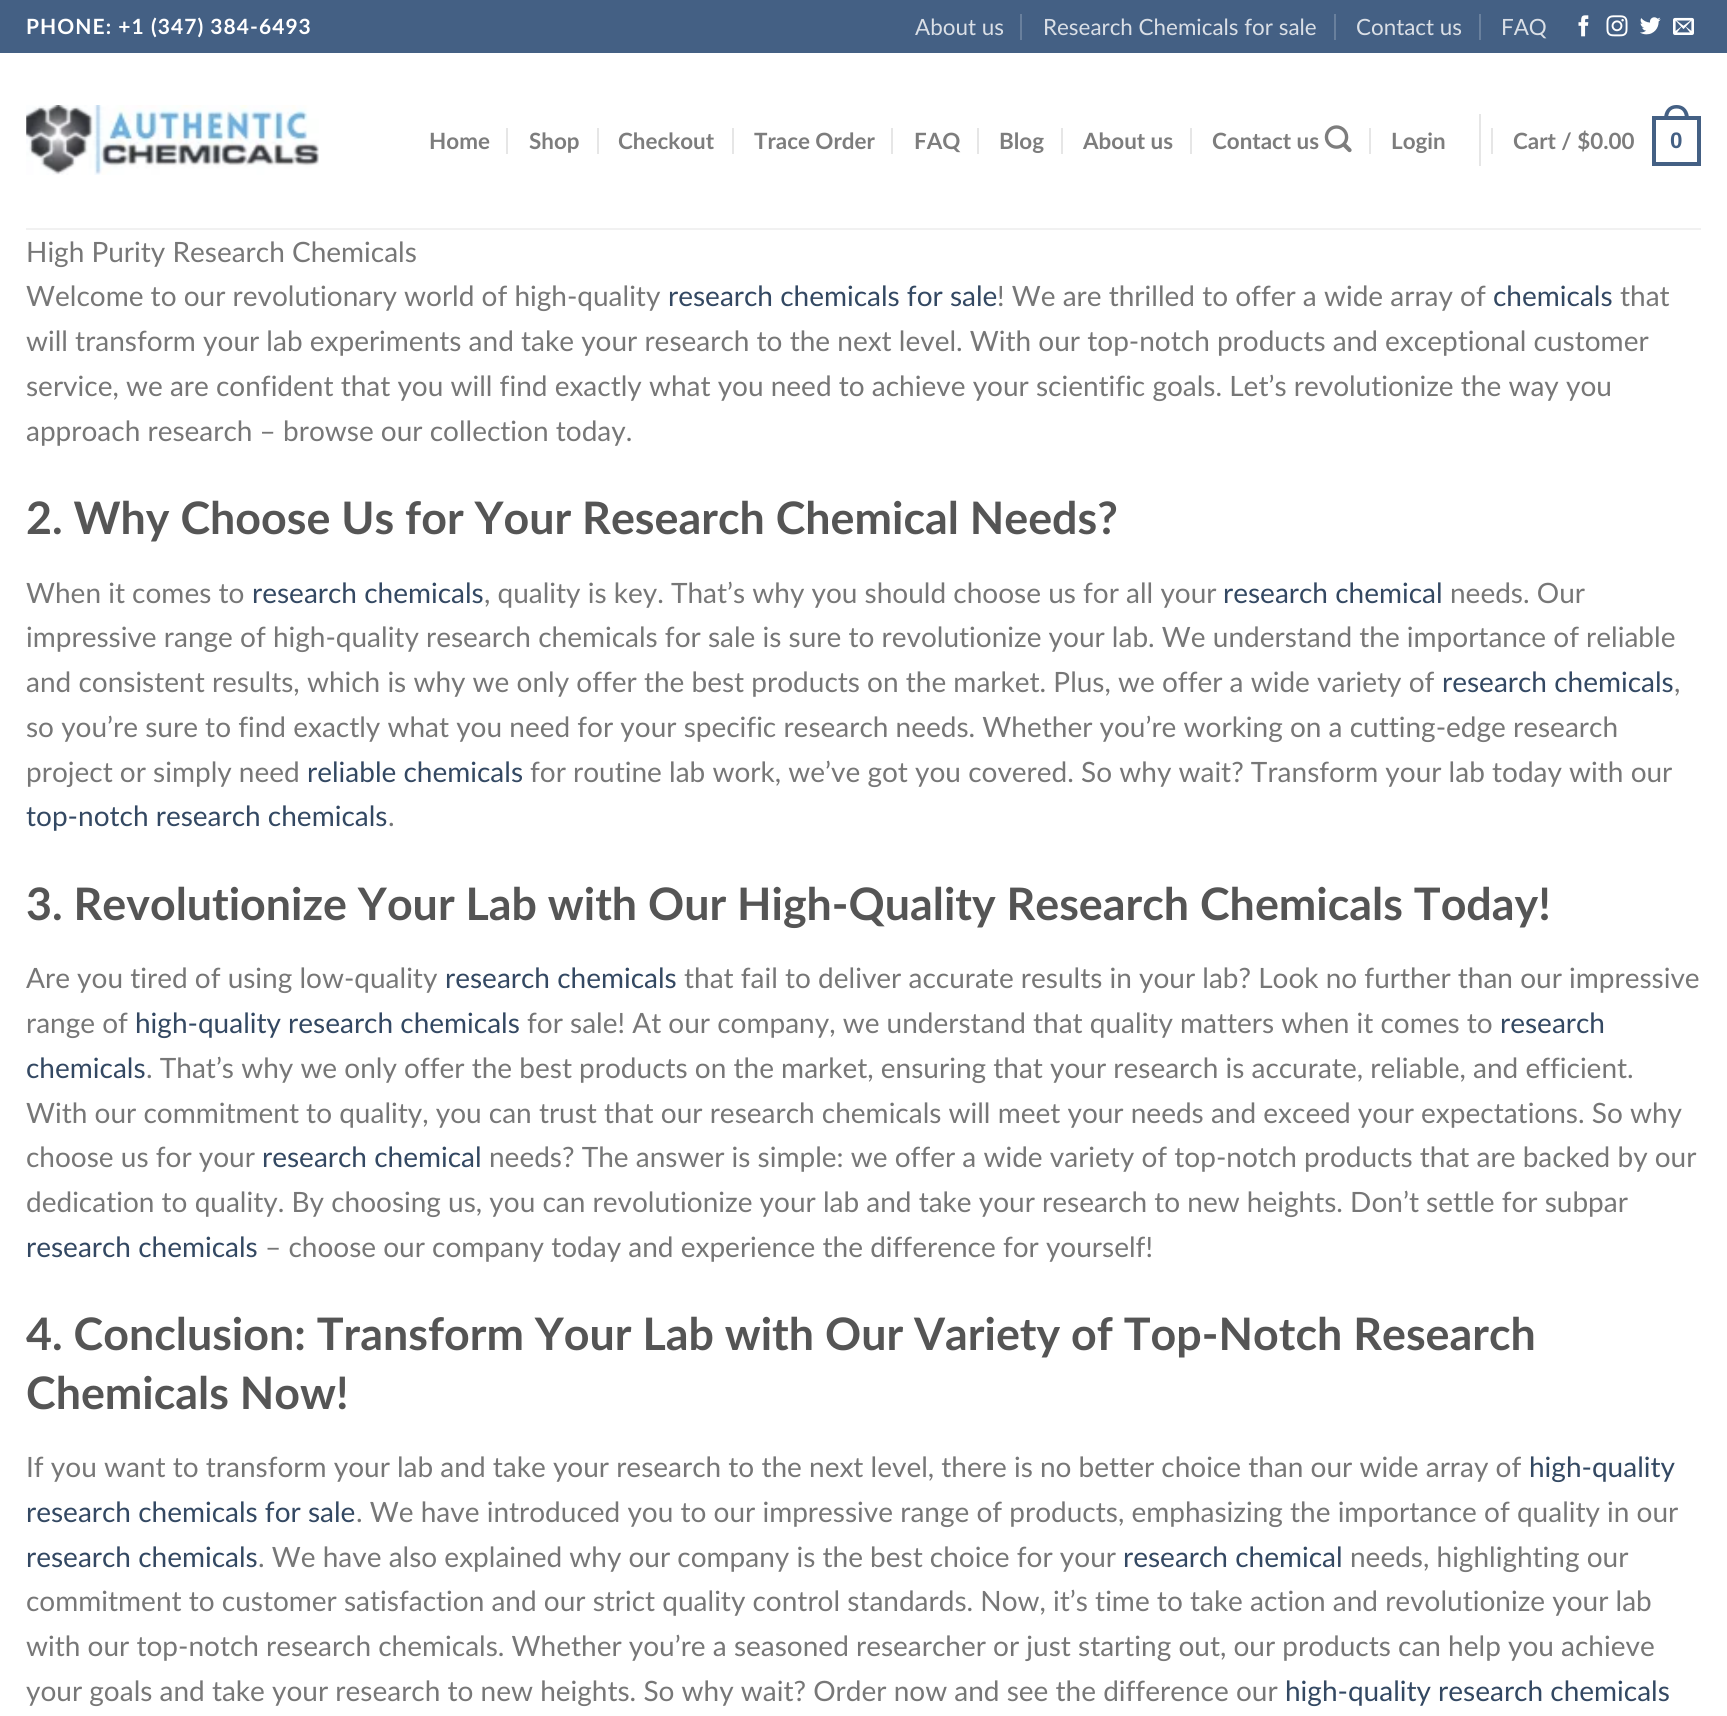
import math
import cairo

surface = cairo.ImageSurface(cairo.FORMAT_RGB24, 1727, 1716)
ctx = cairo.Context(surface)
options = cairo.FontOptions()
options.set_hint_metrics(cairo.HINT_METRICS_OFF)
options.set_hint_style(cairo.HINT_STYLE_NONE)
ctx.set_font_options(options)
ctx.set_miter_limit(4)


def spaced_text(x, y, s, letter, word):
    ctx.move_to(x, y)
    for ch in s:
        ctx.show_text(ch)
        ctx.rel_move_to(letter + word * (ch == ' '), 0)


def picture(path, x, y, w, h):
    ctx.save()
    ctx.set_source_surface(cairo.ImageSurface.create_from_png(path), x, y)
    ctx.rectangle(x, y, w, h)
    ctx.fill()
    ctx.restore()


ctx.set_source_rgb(1, 1, 1)
ctx.paint()
ctx.set_source_rgb(0.267, 0.376, 0.518)
ctx.rectangle(0, 0, 1727, 53)
ctx.fill()
ctx.select_font_face("Lato", cairo.FONT_SLANT_NORMAL, cairo.FONT_WEIGHT_BOLD)
ctx.set_font_size(21)
ctx.set_source_rgb(1, 1, 1)
spaced_text(26, 34, "PHONE: +1 (347) 384-6493", 1.05, 0)
ctx.select_font_face("Lato")
ctx.set_font_size(22.4)
ctx.set_source_rgb(0.855, 0.875, 0.902)
ctx.move_to(915, 35)
ctx.show_text("About us")
ctx.set_source_rgb(0.412, 0.502, 0.616)
ctx.rectangle(1020, 14, 2, 26)
ctx.fill()
ctx.set_source_rgb(0.855, 0.875, 0.902)
ctx.move_to(1043, 35)
ctx.show_text("Research Chemicals for sale")
ctx.set_source_rgb(0.412, 0.502, 0.616)
ctx.rectangle(1334, 14, 2, 26)
ctx.fill()
ctx.set_source_rgb(0.855, 0.875, 0.902)
ctx.move_to(1356, 35)
ctx.show_text("Contact us")
ctx.set_source_rgb(0.412, 0.502, 0.616)
ctx.rectangle(1479, 14, 2, 26)
ctx.fill()
ctx.set_source_rgb(0.855, 0.875, 0.902)
ctx.move_to(1501, 35)
ctx.show_text("FAQ")
picture("img1.png", 1578, 15, 11, 22)
picture("img2.png", 1606, 15, 22, 22)
picture("img3.png", 1640, 17, 21, 18)
picture("img4.png", 1673, 17, 21, 18)
picture("img5.png", 26, 105, 293, 70)
ctx.select_font_face("Lato", cairo.FONT_SLANT_NORMAL, cairo.FONT_WEIGHT_BOLD)
ctx.set_source_rgb(0.49, 0.49, 0.49)
ctx.move_to(429, 149)
ctx.show_text("Home")
ctx.set_source_rgb(0.902, 0.902, 0.902)
ctx.rectangle(506, 128, 2, 26)
ctx.fill()
ctx.set_source_rgb(0.49, 0.49, 0.49)
ctx.move_to(529, 149)
ctx.show_text("Shop")
ctx.set_source_rgb(0.902, 0.902, 0.902)
ctx.rectangle(597, 128, 2, 26)
ctx.fill()
ctx.set_source_rgb(0.49, 0.49, 0.49)
ctx.move_to(618, 149)
ctx.show_text("Checkout")
ctx.set_source_rgb(0.902, 0.902, 0.902)
ctx.rectangle(732, 128, 2, 26)
ctx.fill()
ctx.set_source_rgb(0.49, 0.49, 0.49)
ctx.move_to(754, 149)
ctx.show_text("Trace Order")
ctx.set_source_rgb(0.902, 0.902, 0.902)
ctx.rectangle(891, 128, 2, 26)
ctx.fill()
ctx.set_source_rgb(0.49, 0.49, 0.49)
ctx.move_to(914, 149)
ctx.show_text("FAQ")
ctx.set_source_rgb(0.902, 0.902, 0.902)
ctx.rectangle(977, 128, 2, 26)
ctx.fill()
ctx.set_source_rgb(0.49, 0.49, 0.49)
ctx.move_to(999, 149)
ctx.show_text("Blog")
ctx.set_source_rgb(0.902, 0.902, 0.902)
ctx.rectangle(1061, 128, 2, 26)
ctx.fill()
ctx.set_source_rgb(0.49, 0.49, 0.49)
ctx.move_to(1083, 149)
ctx.show_text("About us")
ctx.set_source_rgb(0.902, 0.902, 0.902)
ctx.rectangle(1190, 128, 2, 26)
ctx.fill()
ctx.set_source_rgb(0.49, 0.49, 0.49)
ctx.move_to(1212, 149)
ctx.show_text("Contact us")
picture("img6.png", 1324, 125, 28, 28)
ctx.set_source_rgb(0.902, 0.902, 0.902)
ctx.rectangle(1369, 128, 2, 26)
ctx.fill()
ctx.set_source_rgb(0.49, 0.49, 0.49)
ctx.move_to(1391, 149)
ctx.show_text("Login")
ctx.set_source_rgb(0.902, 0.902, 0.902)
ctx.rectangle(1479, 114, 2, 52)
ctx.fill()
ctx.rectangle(1491, 128, 2, 26)
ctx.fill()
ctx.set_source_rgb(0.49, 0.49, 0.49)
ctx.move_to(1513, 149)
ctx.show_text("Cart / $0.00")
ctx.rectangle(1654, 118, 45, 46)
ctx.set_source_rgb(0.267, 0.376, 0.518)
ctx.set_line_width(4)
ctx.stroke()
ctx.set_fill_rule(cairo.FILL_RULE_EVEN_ODD)
ctx.new_path()
ctx.move_to(1676.5, 105)
ctx.curve_to(1685, 105, 1689, 111.5, 1689, 119)
ctx.line_to(1664, 119)
ctx.curve_to(1664, 111.5, 1668, 105, 1676.5, 105)
ctx.close_path()
ctx.move_to(1676.5, 108.5)
ctx.curve_to(1683, 108.5, 1685, 113.5, 1685, 119)
ctx.line_to(1668, 119)
ctx.curve_to(1668, 113.5, 1670, 108.5, 1676.5, 108.5)
ctx.close_path()
ctx.fill()
ctx.select_font_face("Liberation Sans", cairo.FONT_SLANT_NORMAL, cairo.FONT_WEIGHT_BOLD)
ctx.move_to(1670, 148)
ctx.show_text("0")
ctx.set_source_rgb(0.945, 0.945, 0.945)
ctx.rectangle(26, 228, 1675, 2)
ctx.fill()
ctx.select_font_face("Lato")
ctx.set_font_size(28)
ctx.set_source_rgb(0.467, 0.467, 0.467)
ctx.move_to(26, 262)
ctx.show_text("High Purity Research Chemicals")
ctx.move_to(26, 306)
ctx.show_text("Welcome to our revolutionary world of high-quality")
ctx.set_source_rgb(0.2, 0.282, 0.384)
ctx.move_to(668, 306)
ctx.show_text("research chemicals for sale")
ctx.set_source_rgb(0.467, 0.467, 0.467)
ctx.move_to(997, 306)
ctx.show_text("! We are thrilled to offer a wide array of")
ctx.set_source_rgb(0.2, 0.282, 0.384)
ctx.move_to(1493, 306)
ctx.show_text("chemicals")
ctx.set_source_rgb(0.467, 0.467, 0.467)
ctx.move_to(1620, 306)
ctx.show_text("that")
ctx.move_to(26, 351)
ctx.show_text("will transform your lab experiments and take your research to the next level. With our top-notch products and exceptional customer")
ctx.move_to(26, 396)
ctx.show_text("service, we are confident that you will find exactly what you need to achieve your scientific goals. Let’s revolutionize the way you")
ctx.move_to(26, 441)
ctx.show_text("approach research – browse our collection today.")
ctx.select_font_face("Lato", cairo.FONT_SLANT_NORMAL, cairo.FONT_WEIGHT_BOLD)
ctx.set_font_size(44.8)
ctx.set_source_rgb(0.333, 0.333, 0.333)
ctx.move_to(26, 534)
ctx.show_text("2. Why Choose Us for Your Research Chemical Needs?")
ctx.select_font_face("Lato")
ctx.set_font_size(28)
ctx.set_source_rgb(0.467, 0.467, 0.467)
ctx.move_to(26, 603)
ctx.show_text("When it comes to")
ctx.set_source_rgb(0.2, 0.282, 0.384)
ctx.move_to(252, 603)
ctx.show_text("research chemicals")
ctx.set_source_rgb(0.467, 0.467, 0.467)
ctx.move_to(484, 603)
ctx.show_text(", quality is key. That’s why you should choose us for all your")
ctx.set_source_rgb(0.2, 0.282, 0.384)
ctx.move_to(1223, 603)
ctx.show_text("research chemical")
ctx.set_source_rgb(0.467, 0.467, 0.467)
ctx.move_to(1450, 603)
ctx.show_text("needs. Our")
ctx.move_to(26, 647)
ctx.show_text("impressive range of high-quality research chemicals for sale is sure to revolutionize your lab. We understand the importance of reliable")
ctx.move_to(26, 692)
ctx.show_text("and consistent results, which is why we only offer the best products on the market. Plus, we offer a wide variety of")
ctx.set_source_rgb(0.2, 0.282, 0.384)
ctx.move_to(1442, 692)
ctx.show_text("research chemicals")
ctx.set_source_rgb(0.467, 0.467, 0.467)
ctx.move_to(1674, 692)
ctx.show_text(",")
ctx.move_to(26, 737)
ctx.show_text("so you’re sure to find exactly what you need for your specific research needs. Whether you’re working on a cutting-edge research")
ctx.move_to(26, 782)
ctx.show_text("project or simply need")
ctx.set_source_rgb(0.2, 0.282, 0.384)
ctx.move_to(307, 782)
ctx.show_text("reliable chemicals")
ctx.set_source_rgb(0.467, 0.467, 0.467)
ctx.move_to(530, 782)
ctx.show_text("for routine lab work, we’ve got you covered. So why wait? Transform your lab today with our")
ctx.set_source_rgb(0.2, 0.282, 0.384)
ctx.move_to(26, 826)
ctx.show_text("top-notch research chemicals")
ctx.set_source_rgb(0.467, 0.467, 0.467)
ctx.move_to(388, 826)
ctx.show_text(".")
ctx.select_font_face("Lato", cairo.FONT_SLANT_NORMAL, cairo.FONT_WEIGHT_BOLD)
ctx.set_font_size(44.8)
ctx.set_source_rgb(0.333, 0.333, 0.333)
ctx.move_to(26, 920)
ctx.show_text("3. Revolutionize Your Lab with Our High-Quality Research Chemicals Today!")
ctx.select_font_face("Lato")
ctx.set_font_size(28)
ctx.set_source_rgb(0.467, 0.467, 0.467)
ctx.move_to(26, 988)
ctx.show_text("Are you tired of using low-quality")
ctx.set_source_rgb(0.2, 0.282, 0.384)
ctx.move_to(445, 988)
ctx.show_text("research chemicals")
ctx.set_source_rgb(0.467, 0.467, 0.467)
ctx.move_to(684, 988)
ctx.show_text("that fail to deliver accurate results in your lab? Look no further than our impressive")
ctx.move_to(26, 1033)
ctx.show_text("range of")
ctx.set_source_rgb(0.2, 0.282, 0.384)
ctx.move_to(135, 1033)
ctx.show_text("high-quality research chemicals")
ctx.set_source_rgb(0.467, 0.467, 0.467)
ctx.move_to(527, 1033)
ctx.show_text("for sale! At our company, we understand that quality matters when it comes to")
ctx.set_source_rgb(0.2, 0.282, 0.384)
ctx.move_to(1500, 1033)
ctx.show_text("research")
ctx.move_to(26, 1078)
ctx.show_text("chemicals")
ctx.set_source_rgb(0.467, 0.467, 0.467)
ctx.move_to(146, 1078)
ctx.show_text(". That’s why we only offer the best products on the market, ensuring that your research is accurate, reliable, and efficient.")
ctx.move_to(26, 1123)
ctx.show_text("With our commitment to quality, you can trust that our research chemicals will meet your needs and exceed your expectations. So why")
ctx.move_to(26, 1167)
ctx.show_text("choose us for your")
ctx.set_source_rgb(0.2, 0.282, 0.384)
ctx.move_to(262, 1167)
ctx.show_text("research chemical")
ctx.set_source_rgb(0.467, 0.467, 0.467)
ctx.move_to(489, 1167)
ctx.show_text("needs? The answer is simple: we offer a wide variety of top-notch products that are backed by our")
ctx.move_to(26, 1212)
ctx.show_text("dedication to quality. By choosing us, you can revolutionize your lab and take your research to new heights. Don’t settle for subpar")
ctx.set_source_rgb(0.2, 0.282, 0.384)
ctx.move_to(26, 1257)
ctx.show_text("research chemicals")
ctx.set_source_rgb(0.467, 0.467, 0.467)
ctx.move_to(265, 1257)
ctx.show_text("– choose our company today and experience the difference for yourself!")
ctx.select_font_face("Lato", cairo.FONT_SLANT_NORMAL, cairo.FONT_WEIGHT_BOLD)
ctx.set_font_size(44.8)
ctx.set_source_rgb(0.333, 0.333, 0.333)
ctx.move_to(26, 1350)
ctx.show_text("4. Conclusion: Transform Your Lab with Our Variety of Top-Notch Research")
ctx.move_to(26, 1409)
ctx.show_text("Chemicals Now!")
ctx.select_font_face("Lato")
ctx.set_font_size(28)
ctx.set_source_rgb(0.467, 0.467, 0.467)
ctx.move_to(26, 1477)
ctx.show_text("If you want to transform your lab and take your research to the next level, there is no better choice than our wide array of")
ctx.set_source_rgb(0.2, 0.282, 0.384)
ctx.move_to(1529, 1477)
ctx.show_text("high-quality")
ctx.move_to(26, 1522)
ctx.show_text("research chemicals for sale")
ctx.set_source_rgb(0.467, 0.467, 0.467)
ctx.move_to(356, 1522)
ctx.show_text(". We have introduced you to our impressive range of products, emphasizing the importance of quality in our")
ctx.set_source_rgb(0.2, 0.282, 0.384)
ctx.move_to(26, 1567)
ctx.show_text("research chemicals")
ctx.set_source_rgb(0.467, 0.467, 0.467)
ctx.move_to(258, 1567)
ctx.show_text(". We have also explained why our company is the best choice for your")
ctx.set_source_rgb(0.2, 0.282, 0.384)
ctx.move_to(1123, 1567)
ctx.show_text("research chemical")
ctx.set_source_rgb(0.467, 0.467, 0.467)
ctx.move_to(1350, 1567)
ctx.show_text("needs, highlighting our")
ctx.move_to(26, 1611)
ctx.show_text("commitment to customer satisfaction and our strict quality control standards. Now, it’s time to take action and revolutionize your lab")
ctx.move_to(26, 1656)
ctx.show_text("with our top-notch research chemicals. Whether you’re a seasoned researcher or just starting out, our products can help you achieve")
ctx.move_to(26, 1701)
ctx.show_text("your goals and take your research to new heights. So why wait? Order now and see the difference our")
ctx.set_source_rgb(0.2, 0.282, 0.384)
ctx.move_to(1285, 1701)
ctx.show_text("high-quality research chemicals")
surface.write_to_png("page.png")
